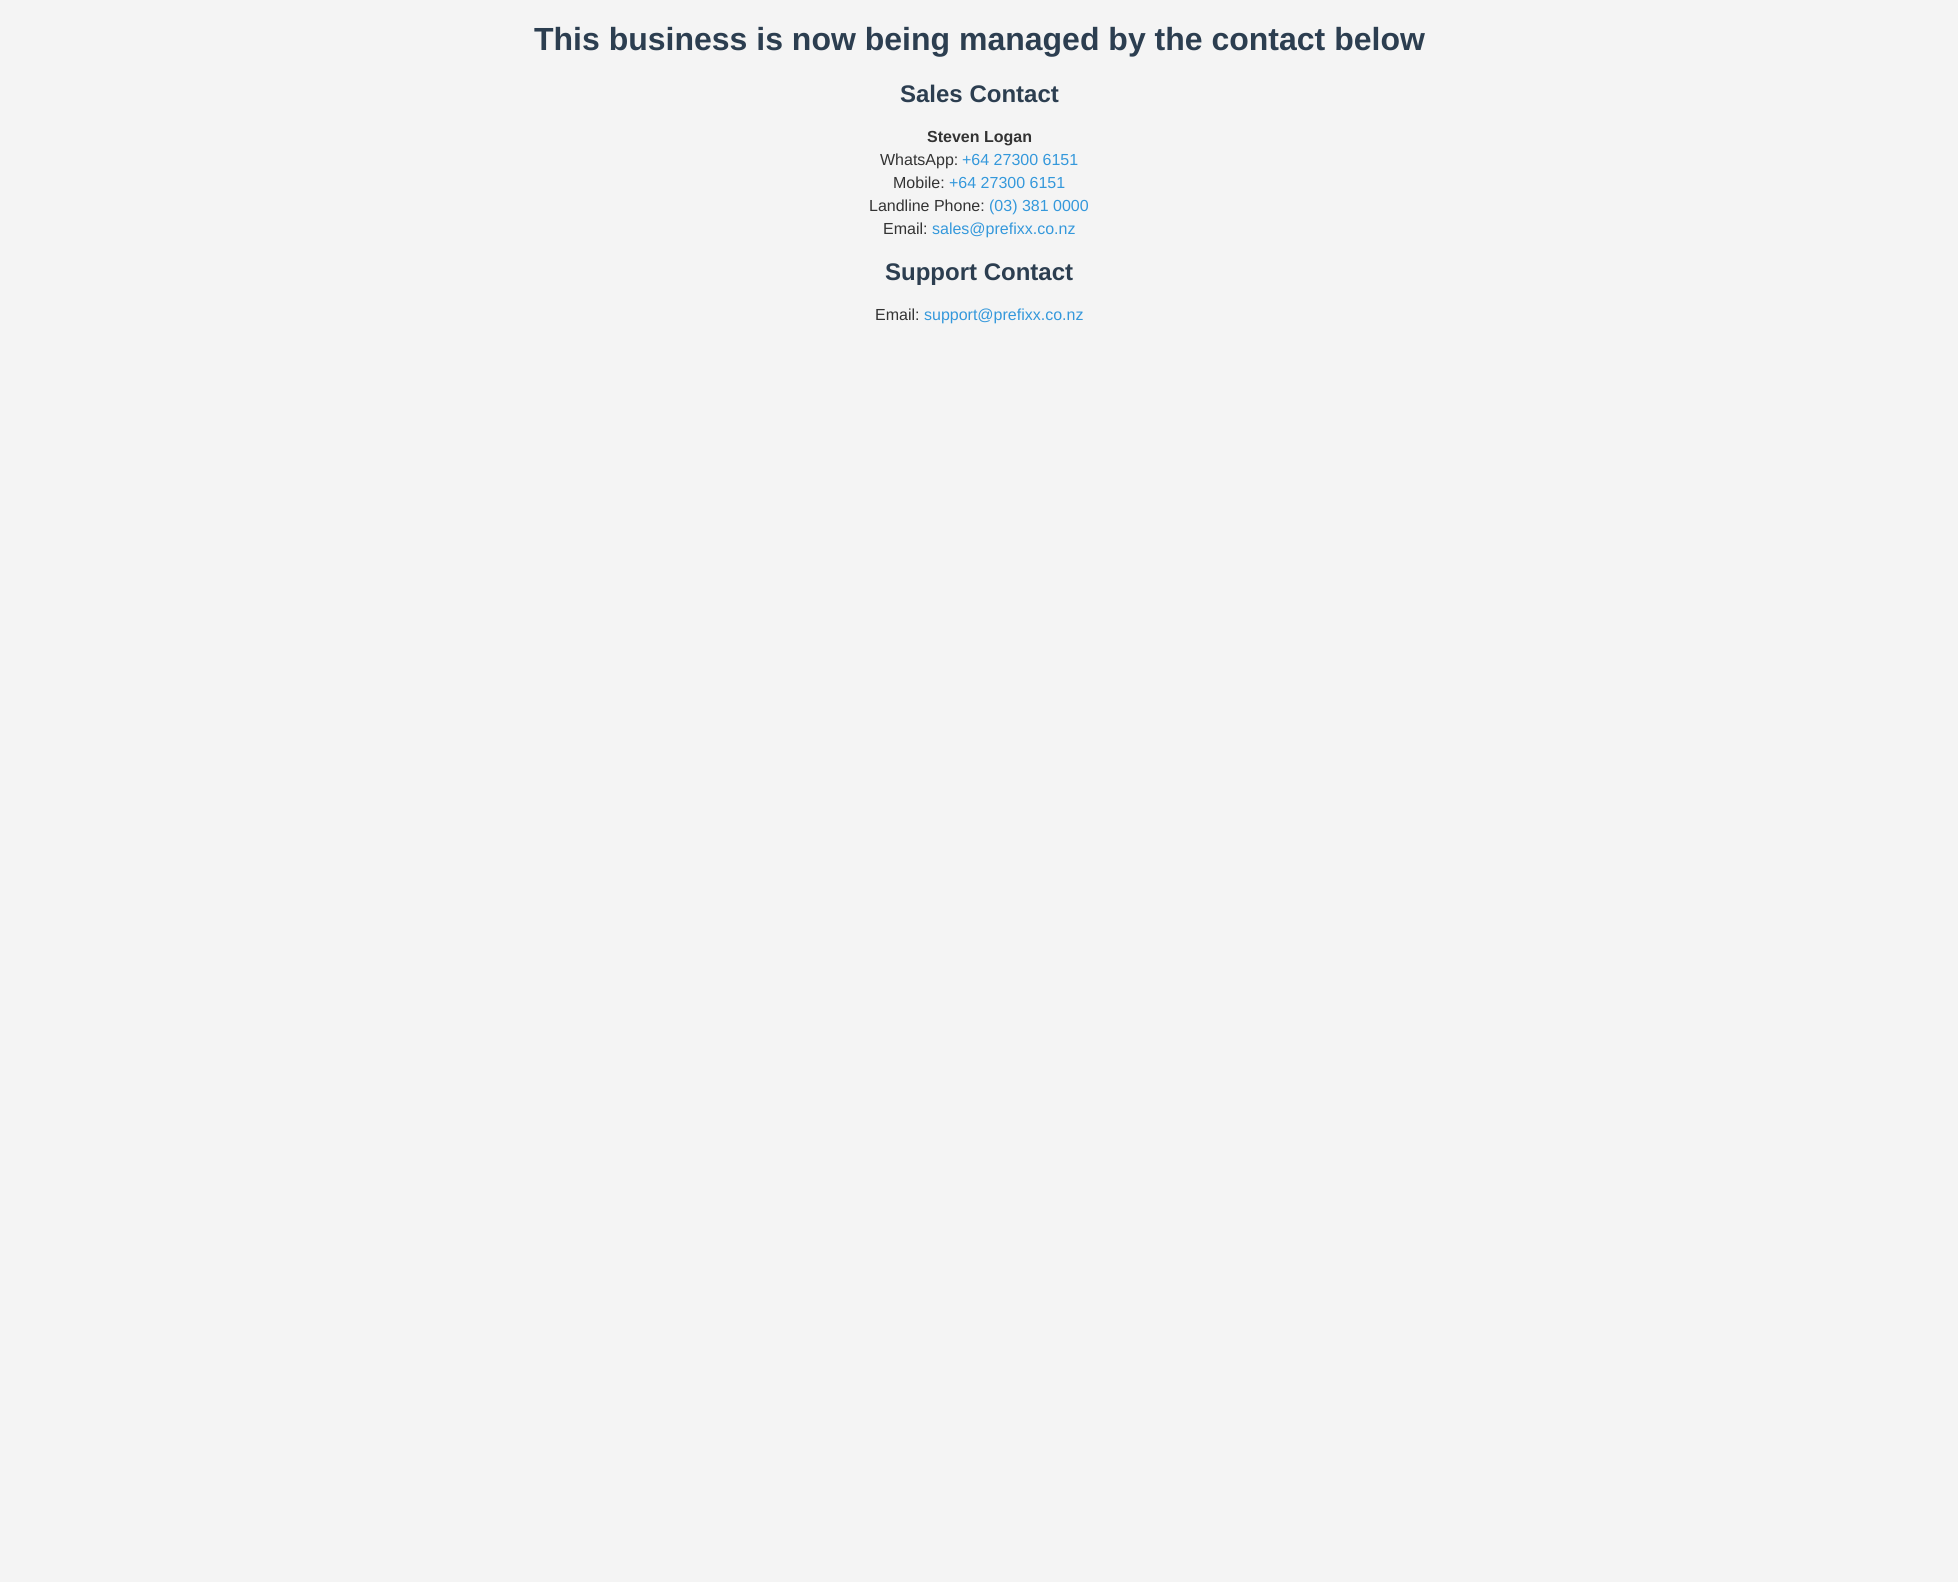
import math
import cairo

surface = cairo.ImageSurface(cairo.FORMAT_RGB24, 1958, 1582)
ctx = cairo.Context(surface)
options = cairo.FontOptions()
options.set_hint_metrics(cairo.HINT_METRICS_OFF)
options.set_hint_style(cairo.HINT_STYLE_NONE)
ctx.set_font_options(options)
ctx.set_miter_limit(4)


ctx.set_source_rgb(0.957, 0.957, 0.957)
ctx.paint()
ctx.select_font_face("Liberation Sans", cairo.FONT_SLANT_NORMAL, cairo.FONT_WEIGHT_BOLD)
ctx.set_font_size(32)
ctx.set_source_rgb(0.173, 0.243, 0.314)
ctx.move_to(534, 50)
ctx.show_text("This business is now being managed by the contact below")
ctx.set_font_size(24)
ctx.move_to(900, 102)
ctx.show_text("Sales Contact")
ctx.set_font_size(16)
ctx.set_source_rgb(0.2, 0.2, 0.2)
ctx.move_to(927, 142)
ctx.show_text("Steven Logan")
ctx.select_font_face("Liberation Sans")
ctx.move_to(880, 165)
ctx.show_text("WhatsApp:")
ctx.set_source_rgb(0.204, 0.596, 0.859)
ctx.move_to(962, 165)
ctx.show_text("+64 27300 6151")
ctx.set_source_rgb(0.2, 0.2, 0.2)
ctx.move_to(893, 188)
ctx.show_text("Mobile:")
ctx.set_source_rgb(0.204, 0.596, 0.859)
ctx.move_to(949, 188)
ctx.show_text("+64 27300 6151")
ctx.set_source_rgb(0.2, 0.2, 0.2)
ctx.move_to(869, 211)
ctx.show_text("Landline Phone:")
ctx.set_source_rgb(0.204, 0.596, 0.859)
ctx.move_to(989, 211)
ctx.show_text("(03) 381 0000")
ctx.set_source_rgb(0.2, 0.2, 0.2)
ctx.move_to(883, 234)
ctx.show_text("Email:")
ctx.set_source_rgb(0.204, 0.596, 0.859)
ctx.move_to(932, 234)
ctx.show_text("sales@prefixx.co.nz")
ctx.select_font_face("Liberation Sans", cairo.FONT_SLANT_NORMAL, cairo.FONT_WEIGHT_BOLD)
ctx.set_font_size(24)
ctx.set_source_rgb(0.173, 0.243, 0.314)
ctx.move_to(885, 280)
ctx.show_text("Support Contact")
ctx.select_font_face("Liberation Sans")
ctx.set_font_size(16)
ctx.set_source_rgb(0.2, 0.2, 0.2)
ctx.move_to(875, 320)
ctx.show_text("Email:")
ctx.set_source_rgb(0.204, 0.596, 0.859)
ctx.move_to(924, 320)
ctx.show_text("support@prefixx.co.nz")
surface.write_to_png("page.png")
